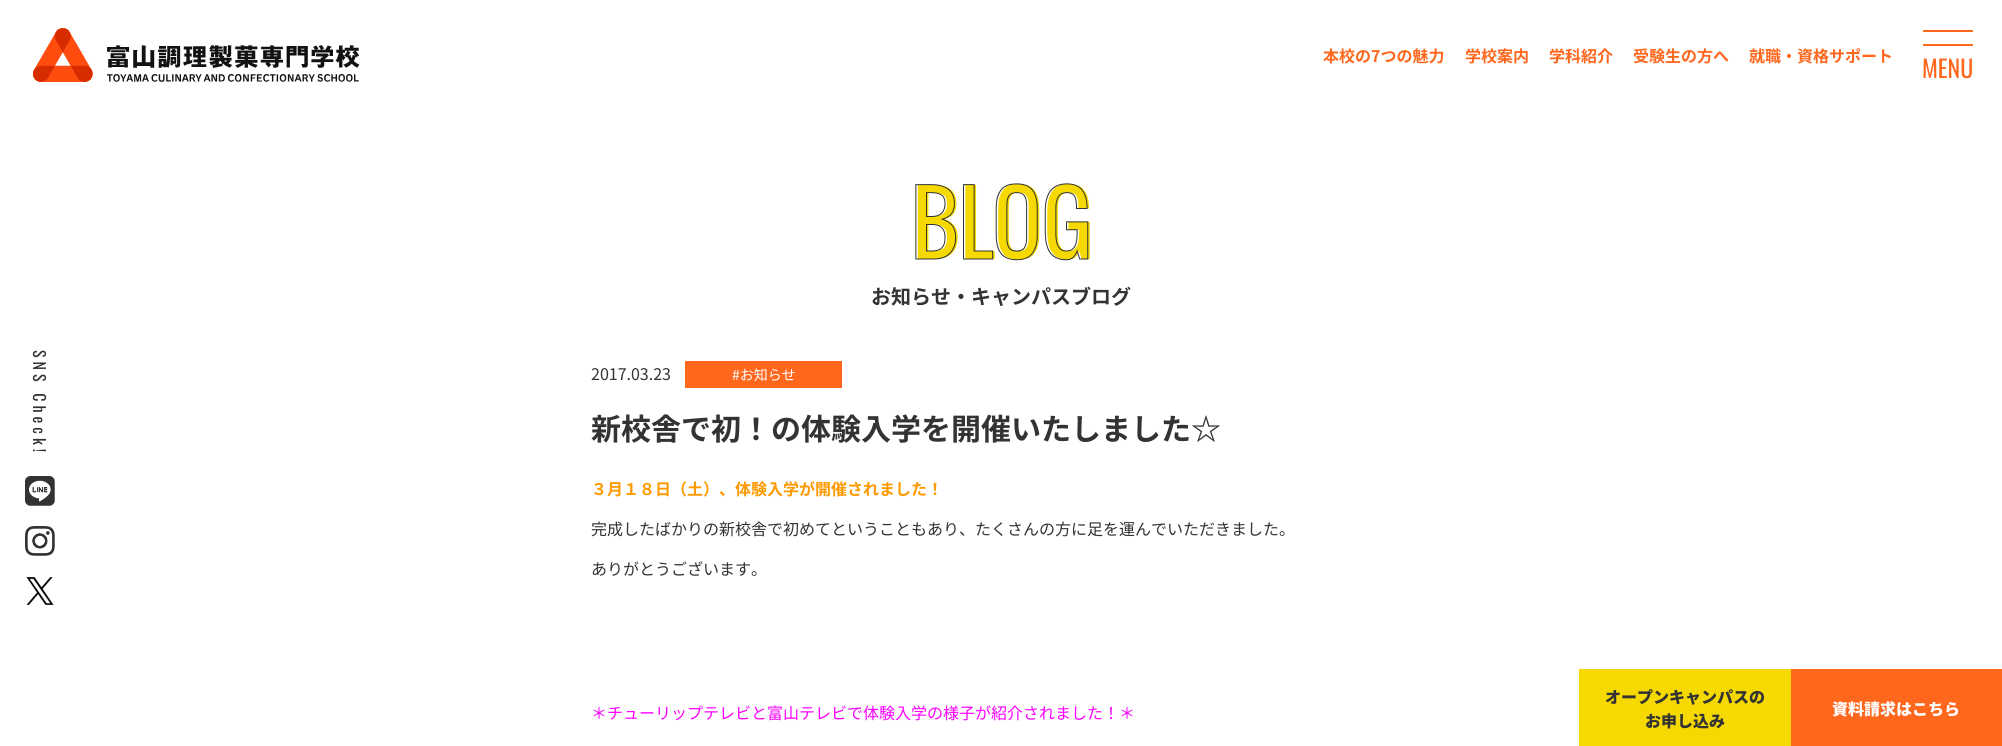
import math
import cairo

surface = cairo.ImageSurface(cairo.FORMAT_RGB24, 2002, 746)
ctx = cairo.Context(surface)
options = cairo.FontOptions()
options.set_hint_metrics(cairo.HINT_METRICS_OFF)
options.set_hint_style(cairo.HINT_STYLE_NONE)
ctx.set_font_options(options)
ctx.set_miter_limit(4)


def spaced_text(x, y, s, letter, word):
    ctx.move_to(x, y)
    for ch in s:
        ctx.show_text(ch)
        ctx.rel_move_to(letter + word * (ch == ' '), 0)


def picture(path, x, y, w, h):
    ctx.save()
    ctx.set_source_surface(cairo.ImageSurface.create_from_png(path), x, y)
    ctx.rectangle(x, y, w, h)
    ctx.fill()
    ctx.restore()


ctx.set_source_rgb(1, 1, 1)
ctx.paint()
picture("img1.png", 33, 28, 327, 54)
ctx.select_font_face("Noto Sans JP", cairo.FONT_SLANT_NORMAL, cairo.FONT_WEIGHT_BOLD)
ctx.set_font_size(16)
ctx.set_source_rgb(1, 0.404, 0.114)
ctx.move_to(1323, 62)
ctx.show_text("本校の7つの魅力")
ctx.move_to(1465, 62)
ctx.show_text("学校案内")
ctx.move_to(1549, 62)
ctx.show_text("学科紹介")
ctx.move_to(1633, 62)
ctx.show_text("受験生の方へ")
ctx.move_to(1749, 62)
ctx.show_text("就職・資格サポート")
ctx.rectangle(1923, 30, 50, 2)
ctx.fill()
ctx.rectangle(1923, 44, 50, 2)
ctx.fill()
ctx.select_font_face("Oswald")
ctx.set_font_size(24)
ctx.move_to(1922, 78)
ctx.show_text("MENU")
ctx.set_font_size(16)
ctx.set_source_rgb(0.2, 0.2, 0.2)
ctx.save()
ctx.translate(33, 350)
ctx.rotate(90 * math.pi / 180)
spaced_text(0, 0, "SNS Check!", 4, 0)
ctx.restore()
picture("img2.png", 25, 476, 30, 30)
picture("img3.png", 25, 526, 30, 30)
picture("img4.png", 26, 577, 28, 28)
picture("img5.png", 915, 183, 175, 78)
ctx.select_font_face("Noto Sans JP", cairo.FONT_SLANT_NORMAL, cairo.FONT_WEIGHT_BOLD)
ctx.set_font_size(20)
ctx.move_to(871, 304)
ctx.show_text("お知らせ・キャンパスブログ")
ctx.select_font_face("Noto Sans JP")
ctx.set_font_size(16)
ctx.move_to(591, 380)
ctx.show_text("2017.03.23")
ctx.set_source_rgb(1, 0.404, 0.114)
ctx.rectangle(685, 361, 157, 27)
ctx.fill()
ctx.set_font_size(14)
ctx.set_source_rgb(1, 1, 1)
ctx.move_to(732, 380)
ctx.show_text("#お知らせ")
ctx.select_font_face("Noto Sans JP", cairo.FONT_SLANT_NORMAL, cairo.FONT_WEIGHT_BOLD)
ctx.set_font_size(30)
ctx.set_source_rgb(0.2, 0.2, 0.2)
ctx.move_to(591, 440)
ctx.show_text("新校舎で初！の体験入学を開催いたしました☆")
ctx.set_font_size(16)
ctx.set_source_rgb(1, 0.6, 0)
ctx.move_to(591, 495)
ctx.show_text("３月１８日（土）、体験入学が開催されました！")
ctx.select_font_face("Noto Sans JP")
ctx.set_source_rgb(0.2, 0.2, 0.2)
ctx.move_to(591, 535)
ctx.show_text("完成したばかりの新校舎で初めてということもあり、たくさんの方に足を運んでいただきました。")
ctx.move_to(591, 575)
ctx.show_text("ありがとうございます。")
ctx.set_source_rgb(1, 0, 1)
ctx.move_to(591, 719)
ctx.show_text("＊チューリップテレビと富山テレビで体験入学の様子が紹介されました！＊")
ctx.set_source_rgb(0.961, 0.851, 0)
ctx.rectangle(1579, 669, 212, 77)
ctx.fill()
ctx.select_font_face("Noto Sans JP Black")
ctx.set_source_rgb(0.2, 0.2, 0.2)
ctx.move_to(1605, 703)
ctx.show_text("オープンキャンパスの")
ctx.move_to(1645, 727)
ctx.show_text("お申し込み")
ctx.set_source_rgb(1, 0.404, 0.114)
ctx.rectangle(1791, 669, 211, 77)
ctx.fill()
ctx.set_source_rgb(1, 1, 1)
ctx.move_to(1832, 715)
ctx.show_text("資料請求はこちら")
surface.write_to_png("page.png")
